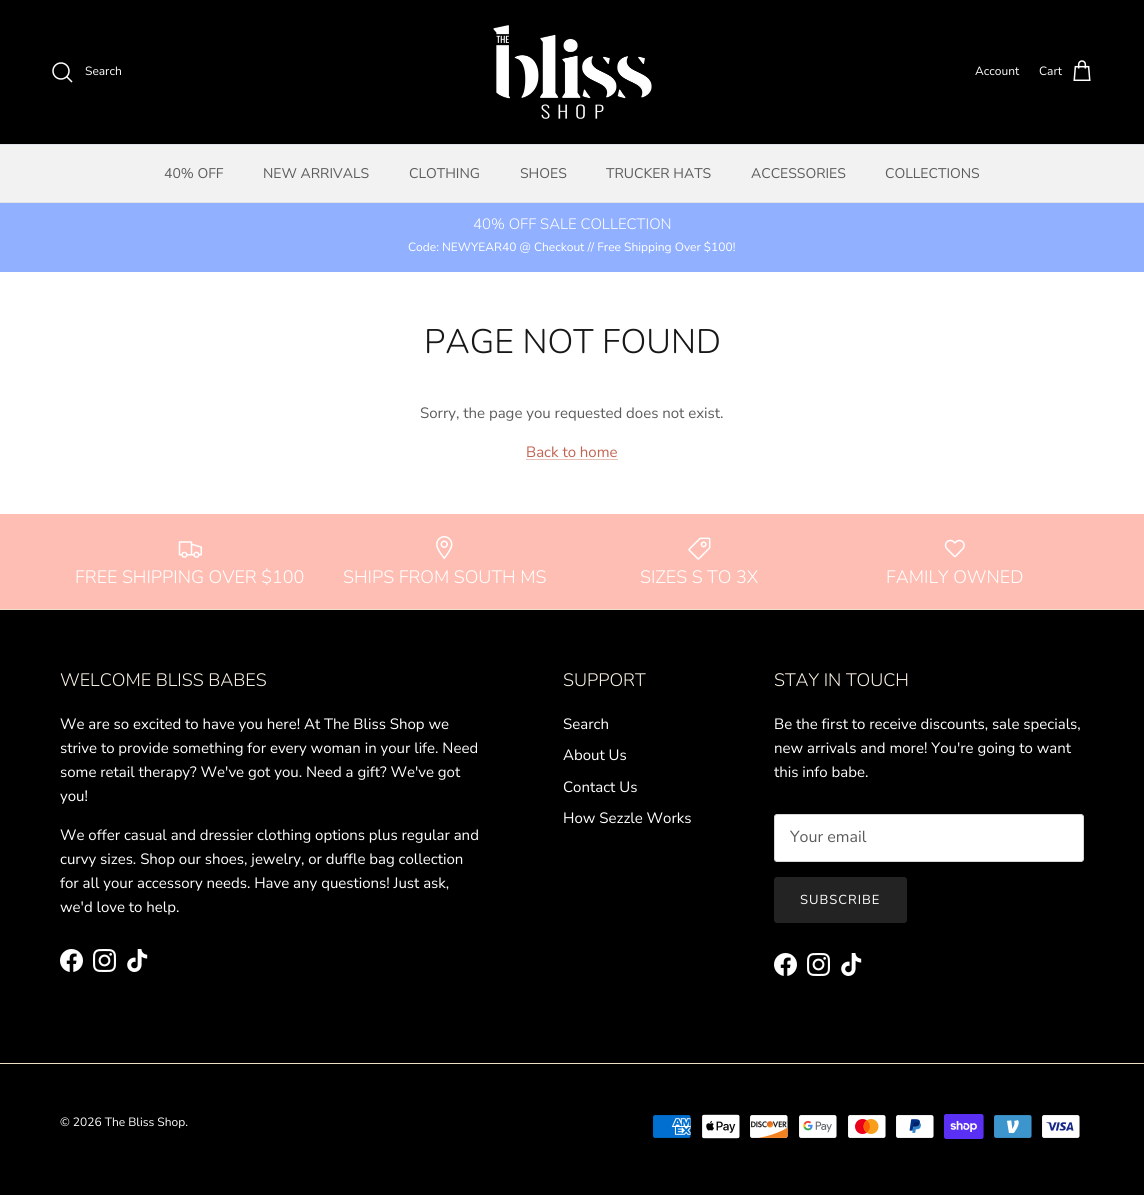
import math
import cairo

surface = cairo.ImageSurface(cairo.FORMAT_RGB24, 1144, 1195)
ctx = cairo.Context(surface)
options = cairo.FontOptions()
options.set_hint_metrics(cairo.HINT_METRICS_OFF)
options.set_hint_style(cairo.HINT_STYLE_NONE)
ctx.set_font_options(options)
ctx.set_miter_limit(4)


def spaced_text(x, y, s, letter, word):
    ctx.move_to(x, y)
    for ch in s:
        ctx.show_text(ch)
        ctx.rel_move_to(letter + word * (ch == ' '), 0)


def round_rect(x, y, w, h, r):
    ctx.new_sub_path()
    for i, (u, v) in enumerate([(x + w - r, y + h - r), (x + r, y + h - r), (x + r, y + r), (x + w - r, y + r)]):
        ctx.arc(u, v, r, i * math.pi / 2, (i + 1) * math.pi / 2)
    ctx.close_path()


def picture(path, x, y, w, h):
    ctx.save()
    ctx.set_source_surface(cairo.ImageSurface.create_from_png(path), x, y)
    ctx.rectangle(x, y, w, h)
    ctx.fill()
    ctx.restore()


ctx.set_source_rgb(1, 1, 1)
ctx.paint()
ctx.set_source_rgb(0, 0, 0)
ctx.rectangle(0, 0, 1144, 144)
ctx.fill()
ctx.set_source_rgb(0.875, 0.89, 0.91)
ctx.rectangle(0, 144, 1144, 1)
ctx.fill()
ctx.arc(61, 71, 8, 0, 2 * math.pi)
ctx.set_source_rgb(1, 1, 1)
ctx.set_line_width(1.5)
ctx.stroke()
ctx.select_font_face("Nunito Sans")
ctx.set_font_size(12)
ctx.move_to(85, 75)
ctx.show_text("Search")
ctx.new_path()
ctx.move_to(67, 77)
ctx.line_to(71.5, 81.5)
ctx.set_line_cap(cairo.LINE_CAP_SQUARE)
ctx.stroke()
picture("img1.png", 493, 25, 159, 94)
ctx.move_to(975, 75)
ctx.show_text("Account")
ctx.move_to(1039, 75)
ctx.show_text("Cart")
picture("img2.png", 1073, 60, 18, 21)
ctx.set_source_rgb(0.875, 0.89, 0.91)
ctx.rectangle(0, 202, 1144, 1)
ctx.fill()
ctx.set_source_rgb(0.949, 0.949, 0.949)
ctx.rectangle(0, 145, 1144, 57)
ctx.fill()
ctx.set_font_size(14)
ctx.set_source_rgb(0.361, 0.361, 0.361)
ctx.move_to(164, 178)
ctx.show_text("40% OFF")
ctx.move_to(263, 178)
ctx.show_text("NEW ARRIVALS")
ctx.move_to(409, 178)
ctx.show_text("CLOTHING")
ctx.move_to(520, 178)
ctx.show_text("SHOES")
ctx.move_to(606, 178)
ctx.show_text("TRUCKER HATS")
ctx.move_to(751, 178)
ctx.show_text("ACCESSORIES")
ctx.move_to(885, 178)
ctx.show_text("COLLECTIONS")
ctx.set_source_rgb(0.569, 0.69, 1)
ctx.rectangle(0, 203, 1144, 69)
ctx.fill()
ctx.select_font_face("Nunito Light")
ctx.set_font_size(15)
ctx.set_source_rgb(1, 1, 1)
ctx.move_to(473, 229)
ctx.show_text("40% OFF SALE COLLECTION")
ctx.select_font_face("Nunito Sans")
ctx.set_font_size(12)
ctx.move_to(408, 251)
ctx.show_text("Code: NEWYEAR40 @ Checkout // Free Shipping Over $100!")
ctx.select_font_face("Nunito Light")
ctx.set_font_size(34)
ctx.set_source_rgb(0.09, 0.09, 0.09)
ctx.move_to(424, 353)
ctx.show_text("PAGE NOT FOUND")
ctx.select_font_face("Nunito Sans")
ctx.set_font_size(15)
ctx.set_source_rgb(0.361, 0.361, 0.361)
ctx.move_to(420, 418)
ctx.show_text("Sorry, the page you requested does not exist.")
ctx.set_source_rgb(0.757, 0.392, 0.322)
ctx.move_to(526, 457)
ctx.show_text("Back to home")
ctx.set_source_rgb(0.902, 0.757, 0.729)
ctx.rectangle(526, 459, 92, 1)
ctx.fill()
ctx.set_source_rgb(1, 0.745, 0.706)
ctx.rectangle(0, 514, 1144, 95)
ctx.fill()
picture("img3.png", 178, 541, 24, 17)
ctx.select_font_face("Nunito Light")
ctx.set_font_size(18)
ctx.set_source_rgb(1, 1, 1)
ctx.move_to(75, 583)
ctx.show_text("FREE SHIPPING OVER $100")
picture("img4.png", 436, 536, 17, 24)
ctx.move_to(343, 583)
ctx.show_text("SHIPS FROM SOUTH MS")
picture("img5.png", 688, 537, 23, 23)
ctx.move_to(640, 583)
ctx.show_text("SIZES S TO 3X")
picture("img6.png", 944, 539, 21, 19)
ctx.move_to(886, 583)
ctx.show_text("FAMILY OWNED")
ctx.set_source_rgb(0, 0, 0)
ctx.rectangle(0, 610, 1144, 585)
ctx.fill()
ctx.set_source_rgb(0.937, 0.875, 0.78)
ctx.rectangle(0, 609, 1144, 1)
ctx.fill()
ctx.set_source_rgb(0.98, 0.949, 0.902)
ctx.move_to(60, 686)
ctx.show_text("WELCOME BLISS BABES")
ctx.select_font_face("Nunito Sans")
ctx.set_font_size(15)
ctx.set_source_rgb(1, 1, 1)
ctx.move_to(60, 729)
ctx.show_text("We are so excited to have you here! At The Bliss Shop we")
ctx.move_to(60, 753)
ctx.show_text("strive to provide something for every woman in your life. Need")
ctx.move_to(60, 777)
ctx.show_text("some retail therapy? We've got you. Need a gift? We've got")
ctx.move_to(60, 801)
ctx.show_text("you!")
ctx.move_to(60, 840)
ctx.show_text("We offer casual and dressier clothing options plus regular and")
ctx.move_to(60, 864)
ctx.show_text("curvy sizes. Shop our shoes, jewelry, or duffle bag collection")
ctx.move_to(60, 888)
ctx.show_text("for all your accessory needs. Have any questions! Just ask,")
ctx.move_to(60, 912)
ctx.show_text("we'd love to help.")
picture("img7.png", 60, 949, 23, 23)
picture("img8.png", 93, 949, 23, 23)
picture("img9.png", 127, 949, 21, 23)
ctx.select_font_face("Nunito Light")
ctx.set_font_size(18)
ctx.set_source_rgb(0.98, 0.949, 0.902)
ctx.move_to(563, 686)
ctx.show_text("SUPPORT")
ctx.select_font_face("Nunito Sans")
ctx.set_font_size(15)
ctx.set_source_rgb(1, 1, 1)
ctx.move_to(563, 729)
ctx.show_text("Search")
ctx.move_to(563, 760)
ctx.show_text("About Us")
ctx.move_to(563, 792)
ctx.show_text("Contact Us")
ctx.move_to(563, 823)
ctx.show_text("How Sezzle Works")
ctx.select_font_face("Nunito Light")
ctx.set_font_size(18)
ctx.set_source_rgb(0.98, 0.949, 0.902)
ctx.move_to(774, 686)
ctx.show_text("STAY IN TOUCH")
ctx.select_font_face("Nunito Sans")
ctx.set_font_size(15)
ctx.set_source_rgb(1, 1, 1)
ctx.move_to(774, 729)
ctx.show_text("Be the first to receive discounts, sale specials,")
ctx.move_to(774, 753)
ctx.show_text("new arrivals and more! You're going to want")
ctx.move_to(774, 777)
ctx.show_text("this info babe.")
round_rect(774.5, 814.5, 309, 47, 2.5)
ctx.fill_preserve()
ctx.set_source_rgb(0.839, 0.839, 0.839)
ctx.set_line_width(1)
ctx.set_line_cap(cairo.LINE_CAP_BUTT)
ctx.stroke()
ctx.set_font_size(16)
ctx.set_source_rgb(0.361, 0.361, 0.361)
ctx.move_to(790, 842)
ctx.show_text("Your email")
ctx.set_source_rgb(0.137, 0.137, 0.137)
round_rect(774.5, 877.5, 132, 45, 2.5)
ctx.fill_preserve()
ctx.stroke()
ctx.set_font_size(13)
ctx.set_source_rgb(1, 1, 1)
spaced_text(800, 904, "SUBSCRIBE", 1, 0)
picture("img7.png", 774, 953, 23, 23)
picture("img8.png", 807, 953, 23, 23)
picture("img9.png", 841, 953, 21, 23)
ctx.set_source_rgb(0.937, 0.875, 0.78)
ctx.rectangle(0, 1063, 1144, 1)
ctx.fill()
ctx.set_font_size(12)
ctx.set_source_rgb(1, 1, 1)
ctx.move_to(60, 1126)
ctx.show_text("© 2026 The Bliss Shop.")
picture("img10.png", 653, 1115, 38, 23)
picture("img11.png", 702, 1114, 38, 25)
picture("img12.png", 750, 1115, 38, 23)
picture("img13.png", 799, 1115, 38, 23)
picture("img14.png", 848, 1115, 38, 23)
picture("img15.png", 896, 1115, 38, 23)
picture("img16.png", 944, 1114, 40, 25)
picture("img17.png", 994, 1115, 38, 23)
picture("img18.png", 1042, 1115, 38, 23)
surface.write_to_png("page.png")
